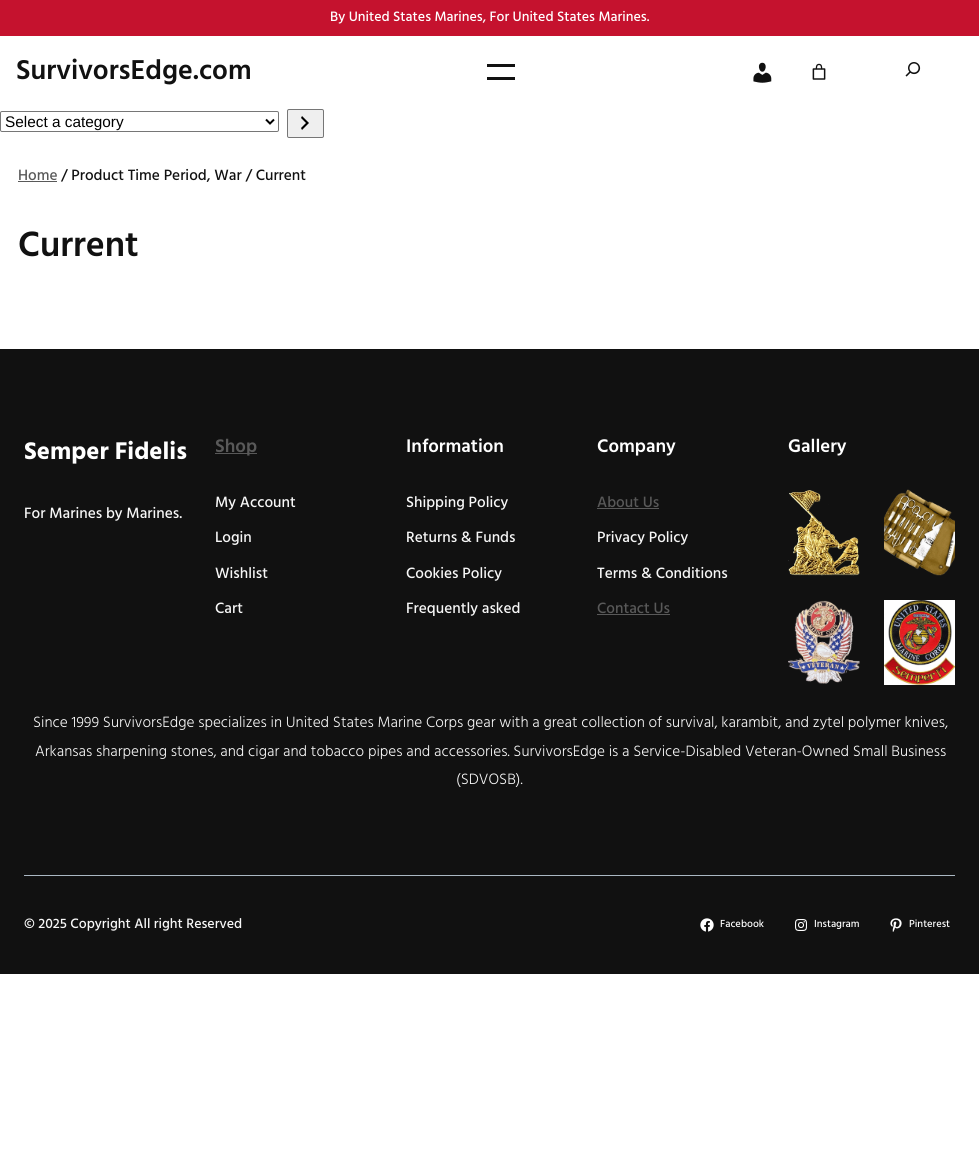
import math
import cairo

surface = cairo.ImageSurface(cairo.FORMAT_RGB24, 979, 1176)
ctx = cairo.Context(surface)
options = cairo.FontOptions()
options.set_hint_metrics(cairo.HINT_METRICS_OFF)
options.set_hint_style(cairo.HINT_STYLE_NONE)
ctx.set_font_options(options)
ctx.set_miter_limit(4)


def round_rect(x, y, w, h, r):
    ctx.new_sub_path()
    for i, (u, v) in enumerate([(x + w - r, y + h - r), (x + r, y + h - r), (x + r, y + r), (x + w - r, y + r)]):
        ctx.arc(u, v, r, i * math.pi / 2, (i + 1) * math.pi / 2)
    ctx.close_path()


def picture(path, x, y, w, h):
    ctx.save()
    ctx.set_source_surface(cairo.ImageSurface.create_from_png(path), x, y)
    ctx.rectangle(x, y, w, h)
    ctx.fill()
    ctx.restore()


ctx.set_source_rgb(1, 1, 1)
ctx.paint()
ctx.set_source_rgb(0.773, 0.071, 0.18)
ctx.rectangle(0, 0, 979, 36)
ctx.fill()
ctx.select_font_face("Hind Medium")
ctx.set_font_size(14)
ctx.set_source_rgb(1, 1, 1)
ctx.move_to(330, 21)
ctx.show_text("By United States Marines, For United States Marines.")
ctx.select_font_face("Hind SemiBold")
ctx.set_font_size(28)
ctx.set_source_rgb(0.067, 0.067, 0.067)
ctx.move_to(16, 79)
ctx.show_text("SurvivorsEdge.com")
ctx.rectangle(487, 64, 28, 3)
ctx.fill()
ctx.rectangle(487, 77, 28, 3)
ctx.fill()
picture("img1.png", 753, 62, 19, 21)
picture("img2.png", 812, 63, 14, 17)
picture("img3.png", 905, 62, 16, 15)
round_rect(0.5, 111.5, 278, 20, 1.5)
ctx.set_source_rgb(0.463, 0.463, 0.463)
ctx.set_line_width(1)
ctx.stroke()
ctx.new_path()
ctx.move_to(266, 119.5)
ctx.line_to(270, 123.5)
ctx.line_to(274, 119.5)
ctx.set_source_rgb(0, 0, 0)
ctx.set_line_width(2)
ctx.stroke()
ctx.select_font_face("Liberation Sans")
ctx.set_font_size(15.35)
ctx.move_to(5, 127)
ctx.show_text("Select a category")
ctx.set_source_rgb(0.937, 0.937, 0.937)
round_rect(287.5, 109.5, 36, 28, 1.5)
ctx.fill_preserve()
ctx.set_source_rgb(0.463, 0.463, 0.463)
ctx.set_line_width(1)
ctx.stroke()
picture("img4.png", 301, 116, 8, 14)
ctx.select_font_face("Hind Medium")
ctx.set_source_rgb(0.349, 0.349, 0.349)
ctx.move_to(18, 180)
ctx.show_text("Home")
ctx.rectangle(18, 181, 39, 1)
ctx.fill()
ctx.set_source_rgb(0.067, 0.067, 0.067)
ctx.move_to(61, 180)
ctx.show_text("/ Product Time Period, War / Current")
ctx.select_font_face("Hind SemiBold")
ctx.set_font_size(36)
ctx.move_to(18, 256)
ctx.show_text("Current")
ctx.rectangle(0, 349, 979, 625)
ctx.fill()
ctx.select_font_face("Hind", cairo.FONT_SLANT_NORMAL, cairo.FONT_WEIGHT_BOLD)
ctx.set_font_size(24.75)
ctx.set_source_rgb(1, 1, 1)
ctx.move_to(24, 459)
ctx.show_text("Semper Fidelis")
ctx.select_font_face("Hind Medium")
ctx.set_font_size(15.35)
ctx.set_source_rgb(0.965, 0.965, 0.965)
ctx.move_to(24, 518)
ctx.show_text("For Marines by Marines.")
ctx.set_source_rgb(0.349, 0.349, 0.349)
ctx.rectangle(215, 453, 42, 1)
ctx.fill()
ctx.select_font_face("Hind SemiBold")
ctx.set_font_size(18.75)
ctx.move_to(215, 452)
ctx.show_text("Shop")
ctx.select_font_face("Hind Medium")
ctx.set_font_size(15.35)
ctx.set_source_rgb(0.965, 0.965, 0.965)
ctx.move_to(215, 507)
ctx.show_text("My Account")
ctx.move_to(215, 542)
ctx.show_text("Login")
ctx.move_to(215, 578)
ctx.show_text("Wishlist")
ctx.move_to(215, 613)
ctx.show_text("Cart")
ctx.select_font_face("Hind SemiBold")
ctx.set_font_size(18.75)
ctx.set_source_rgb(1, 1, 1)
ctx.move_to(406, 452)
ctx.show_text("Information")
ctx.select_font_face("Hind Medium")
ctx.set_font_size(15.35)
ctx.set_source_rgb(0.965, 0.965, 0.965)
ctx.move_to(406, 507)
ctx.show_text("Shipping Policy")
ctx.move_to(406, 542)
ctx.show_text("Returns & Funds")
ctx.move_to(406, 578)
ctx.show_text("Cookies Policy")
ctx.move_to(406, 613)
ctx.show_text("Frequently asked")
ctx.select_font_face("Hind SemiBold")
ctx.set_font_size(18.75)
ctx.set_source_rgb(1, 1, 1)
ctx.move_to(597, 452)
ctx.show_text("Company")
ctx.select_font_face("Hind Medium")
ctx.set_font_size(15.35)
ctx.set_source_rgb(0.349, 0.349, 0.349)
ctx.move_to(597, 507)
ctx.show_text("About Us")
ctx.rectangle(597, 508, 62, 1)
ctx.fill()
ctx.set_source_rgb(0.965, 0.965, 0.965)
ctx.move_to(597, 542)
ctx.show_text("Privacy Policy")
ctx.move_to(597, 578)
ctx.show_text("Terms & Conditions")
ctx.set_source_rgb(0.349, 0.349, 0.349)
ctx.move_to(597, 613)
ctx.show_text("Contact Us")
ctx.rectangle(597, 614, 73, 1)
ctx.fill()
ctx.select_font_face("Hind SemiBold")
ctx.set_font_size(18.75)
ctx.set_source_rgb(1, 1, 1)
ctx.move_to(788, 452)
ctx.show_text("Gallery")
picture("img5.png", 788, 490, 72, 86)
picture("img6.png", 884, 489, 71, 87)
picture("img7.png", 788, 600, 72, 84)
picture("img8.png", 884, 600, 71, 85)
ctx.select_font_face("Hind Light")
ctx.set_font_size(15.35)
ctx.set_source_rgb(0.965, 0.965, 0.965)
ctx.move_to(33, 727)
ctx.show_text("Since 1999 SurvivorsEdge specializes in United States Marine Corps gear with a great collection of survival, karambit, and zytel polymer knives,")
ctx.move_to(35, 756)
ctx.show_text("Arkansas sharpening stones, and cigar and tobacco pipes and accessories. SurvivorsEdge is a Service-Disabled Veteran-Owned Small Business")
ctx.move_to(456, 784)
ctx.show_text("(SDVOSB).")
ctx.set_source_rgb(0.671, 0.722, 0.765)
ctx.rectangle(24, 875, 931, 1)
ctx.fill()
ctx.select_font_face("Hind Medium")
ctx.set_font_size(14)
ctx.set_source_rgb(0.965, 0.965, 0.965)
ctx.move_to(24, 928)
ctx.show_text("© 2025 Copyright All right Reserved")
picture("img9.png", 700, 918, 14, 14)
ctx.set_font_size(10.5)
ctx.set_source_rgb(1, 1, 1)
ctx.move_to(720, 927)
ctx.show_text("Facebook")
picture("img10.png", 795, 919, 12, 12)
ctx.move_to(814, 927)
ctx.show_text("Instagram")
picture("img11.png", 890, 918, 12, 14)
ctx.move_to(909, 927)
ctx.show_text("Pinterest")
surface.write_to_png("page.png")
